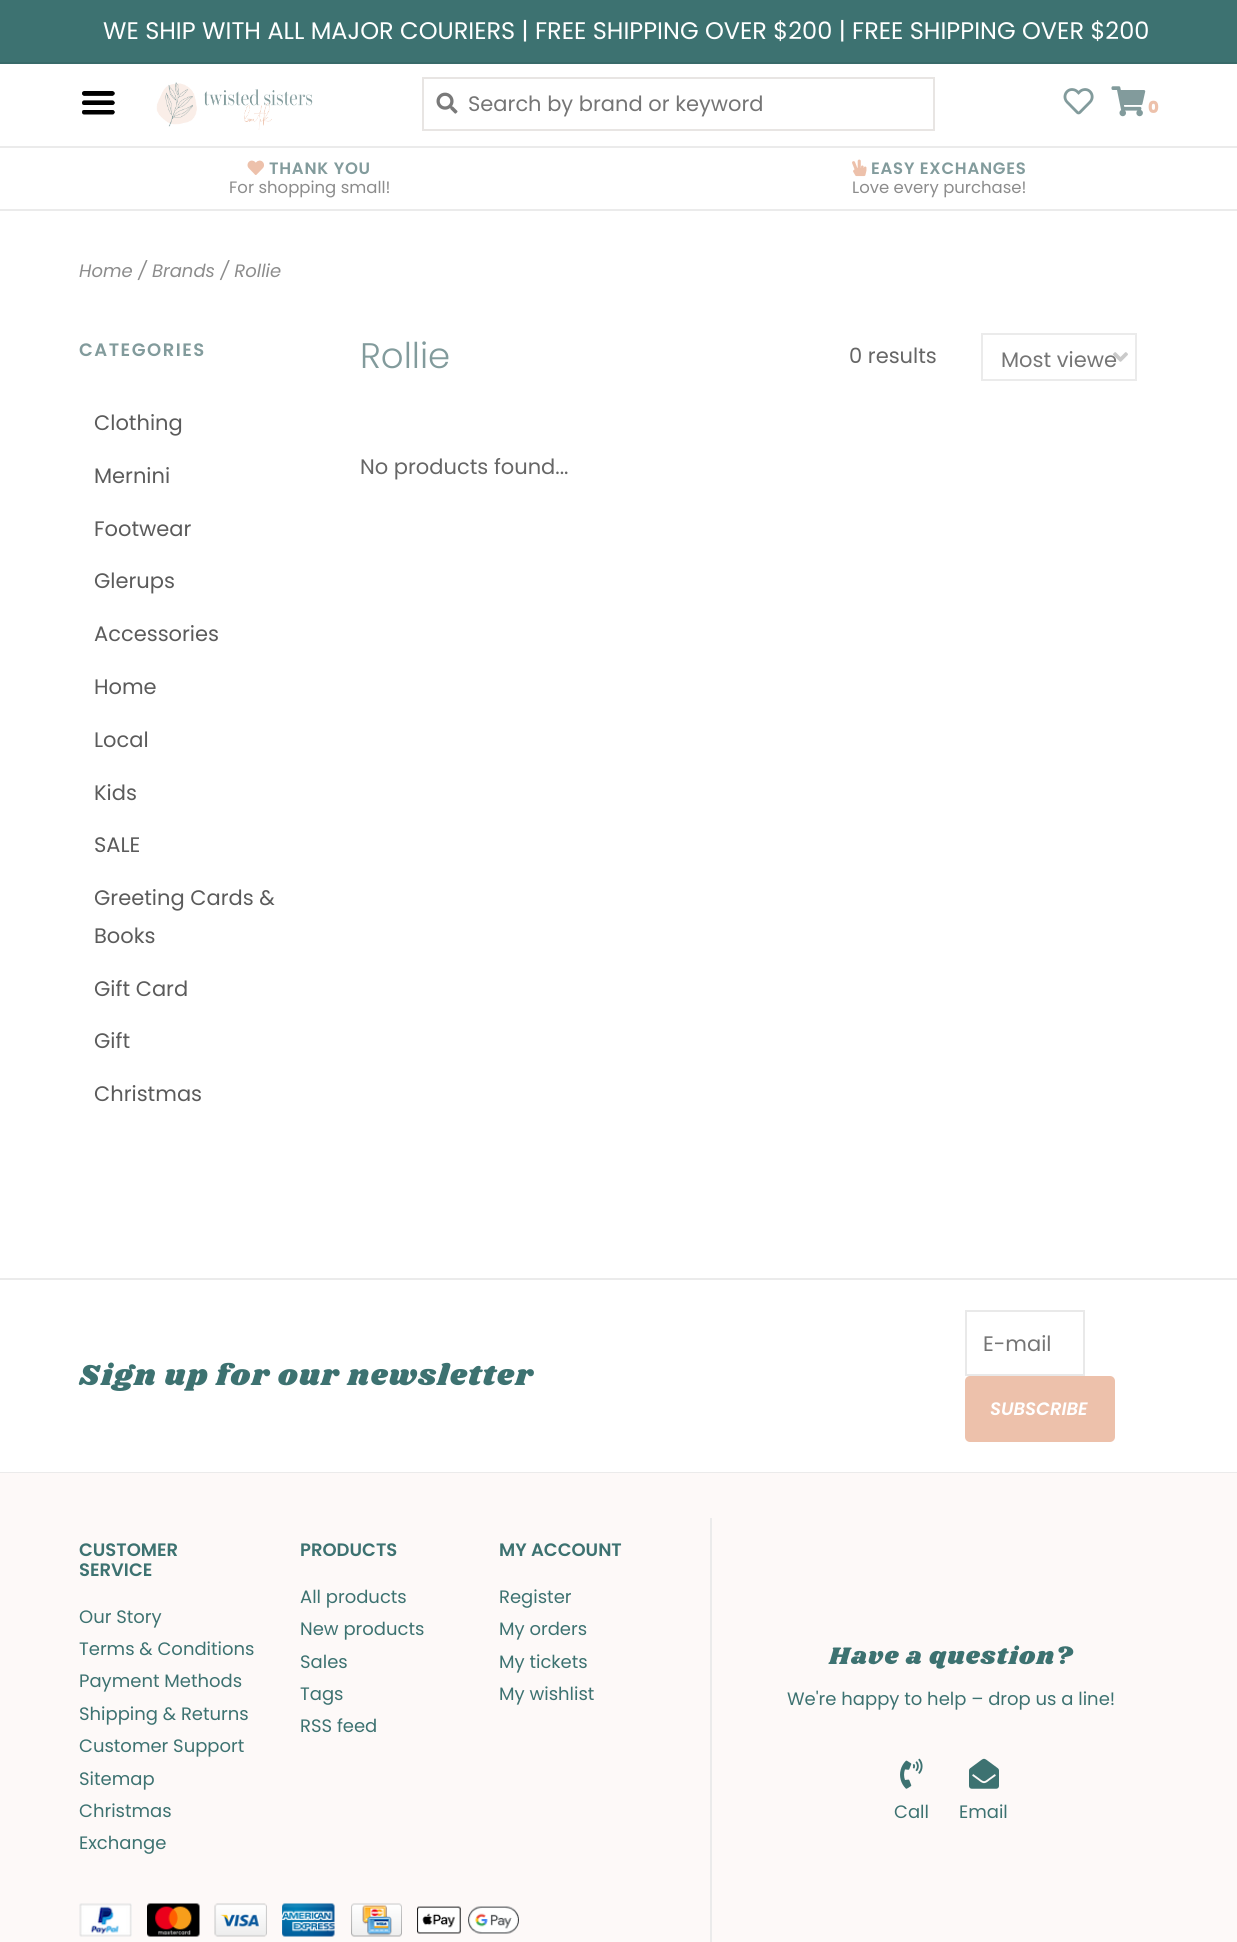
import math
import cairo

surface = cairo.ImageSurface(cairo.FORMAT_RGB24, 1237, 1942)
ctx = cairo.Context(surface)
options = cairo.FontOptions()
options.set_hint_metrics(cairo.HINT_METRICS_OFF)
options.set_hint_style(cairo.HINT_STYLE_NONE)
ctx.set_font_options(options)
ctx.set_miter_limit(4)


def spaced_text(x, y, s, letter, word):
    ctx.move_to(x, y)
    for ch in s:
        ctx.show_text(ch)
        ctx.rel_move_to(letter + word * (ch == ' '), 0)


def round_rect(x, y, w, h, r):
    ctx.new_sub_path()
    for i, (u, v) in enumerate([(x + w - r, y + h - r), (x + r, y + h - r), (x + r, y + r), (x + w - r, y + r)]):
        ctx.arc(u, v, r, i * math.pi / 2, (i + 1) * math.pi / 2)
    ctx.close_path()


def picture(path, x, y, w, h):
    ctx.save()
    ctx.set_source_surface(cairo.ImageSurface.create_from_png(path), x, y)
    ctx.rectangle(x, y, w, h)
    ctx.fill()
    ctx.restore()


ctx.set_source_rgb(1, 1, 1)
ctx.paint()
ctx.set_source_rgb(0.239, 0.447, 0.443)
ctx.rectangle(0, 0, 1237, 62)
ctx.fill()
ctx.set_source_rgb(0.22, 0.416, 0.412)
ctx.rectangle(0, 62, 1237, 2)
ctx.fill()
ctx.select_font_face("Poppins")
ctx.set_font_size(24)
ctx.set_source_rgb(1, 1, 1)
ctx.move_to(103, 39)
ctx.show_text("WE SHIP WITH ALL MAJOR COURIERS | FREE SHIPPING OVER $200 | FREE SHIPPING OVER $200")
picture("img1.png", 82, 91, 33, 24)
picture("img2.png", 156, 82, 157, 48)
ctx.rectangle(423, 78, 511, 52)
ctx.set_source_rgb(0.91, 0.898, 0.89)
ctx.stroke()
picture("img3.png", 436, 92, 22, 22)
ctx.set_font_size(21)
ctx.set_source_rgb(0.459, 0.459, 0.459)
ctx.move_to(468, 111)
ctx.show_text("Search by brand or keyword")
picture("img4.png", 1063, 88, 31, 27)
picture("img5.png", 1111, 86, 35, 31)
ctx.select_font_face("Poppins ExtraBold")
ctx.set_font_size(16.5)
ctx.set_source_rgb(0.929, 0.757, 0.671)
ctx.move_to(1148, 113)
ctx.show_text("0")
ctx.set_source_rgb(0.918, 0.918, 0.918)
ctx.rectangle(0, 146, 1237, 2)
ctx.fill()
ctx.rectangle(0, 209, 1237, 2)
ctx.fill()
picture("img6.png", 247, 160, 17, 15)
ctx.select_font_face("Poppins SemiBold")
ctx.set_source_rgb(0.51, 0.608, 0.612)
spaced_text(269, 174, "THANK YOU", 0.75, 0)
ctx.select_font_face("Poppins")
ctx.set_source_rgb(0.549, 0.549, 0.549)
ctx.move_to(229, 193)
ctx.show_text("For shopping small!")
picture("img7.png", 852, 159, 15, 18)
ctx.select_font_face("Poppins SemiBold")
ctx.set_source_rgb(0.51, 0.608, 0.612)
spaced_text(871, 174, "EASY EXCHANGES", 0.75, 0)
ctx.select_font_face("Poppins")
ctx.set_source_rgb(0.549, 0.549, 0.549)
ctx.move_to(852, 193)
ctx.show_text("Love every purchase!")
ctx.select_font_face("Poppins", cairo.FONT_SLANT_ITALIC)
ctx.set_font_size(18)
ctx.move_to(79, 277)
ctx.show_text("Home / Brands / Rollie")
ctx.select_font_face("Poppins SemiBold")
ctx.set_source_rgb(0.51, 0.608, 0.612)
spaced_text(79, 356, "CATEGORIES", 1.5, 0)
ctx.select_font_face("Poppins")
ctx.set_font_size(21)
ctx.set_source_rgb(0.357, 0.357, 0.357)
ctx.move_to(94, 430)
ctx.show_text("Clothing")
ctx.move_to(94, 483)
ctx.show_text("Mernini")
ctx.move_to(94, 536)
ctx.show_text("Footwear")
ctx.move_to(94, 588)
ctx.show_text("Glerups")
ctx.move_to(94, 641)
ctx.show_text("Accessories")
ctx.move_to(94, 694)
ctx.show_text("Home")
ctx.move_to(94, 747)
ctx.show_text("Local")
ctx.move_to(94, 800)
ctx.show_text("Kids")
ctx.move_to(94, 852)
ctx.show_text("SALE")
ctx.move_to(94, 905)
ctx.show_text("Greeting Cards &")
ctx.move_to(94, 943)
ctx.show_text("Books")
ctx.move_to(94, 996)
ctx.show_text("Gift Card")
ctx.move_to(94, 1048)
ctx.show_text("Gift")
ctx.move_to(94, 1101)
ctx.show_text("Christmas")
ctx.select_font_face("Poppins Light")
ctx.set_font_size(35.5)
ctx.set_source_rgb(0.51, 0.608, 0.612)
ctx.move_to(360, 368)
ctx.show_text("Rollie")
ctx.select_font_face("Poppins")
ctx.set_font_size(21)
ctx.set_source_rgb(0.4, 0.4, 0.4)
ctx.move_to(849, 363)
ctx.show_text("0 results")
picture("img8.png", 1113, 352, 15, 10)
ctx.rectangle(982, 334, 154, 46)
ctx.set_source_rgb(0.918, 0.918, 0.918)
ctx.stroke()
ctx.set_source_rgb(0.459, 0.459, 0.459)
ctx.move_to(1001, 367)
ctx.show_text("Most viewe")
ctx.set_source_rgb(0.4, 0.4, 0.4)
ctx.move_to(360, 474)
ctx.show_text("No products found...")
ctx.set_source_rgb(0.918, 0.918, 0.918)
ctx.rectangle(0, 1278, 1237, 2)
ctx.fill()
ctx.rectangle(0, 1472, 1237, 1)
ctx.fill()
ctx.select_font_face("Shrikhand")
ctx.set_font_size(30)
ctx.set_source_rgb(0.239, 0.447, 0.443)
spaced_text(79, 1385, "Sign up for our newsletter", 1.5, 0)
ctx.rectangle(966, 1311, 118, 64)
ctx.set_source_rgb(0.914, 0.914, 0.914)
ctx.stroke()
ctx.select_font_face("Poppins")
ctx.set_font_size(21)
ctx.set_source_rgb(0.459, 0.459, 0.459)
ctx.move_to(983, 1351)
ctx.show_text("E-mail")
ctx.set_source_rgb(0.929, 0.757, 0.671)
round_rect(965, 1376, 150, 66, 5)
ctx.fill()
ctx.select_font_face("Poppins SemiBold", cairo.FONT_SLANT_ITALIC)
ctx.set_font_size(18)
ctx.set_source_rgb(1, 1, 1)
ctx.move_to(990, 1415)
ctx.show_text("SUBSCRIBE")
ctx.set_source_rgb(0.992, 0.976, 0.969)
ctx.rectangle(0, 1473, 1237, 469)
ctx.fill()
ctx.select_font_face("Poppins SemiBold")
ctx.set_source_rgb(0.239, 0.447, 0.443)
ctx.move_to(79, 1556)
ctx.show_text("CUSTOMER")
ctx.move_to(79, 1576)
ctx.show_text("SERVICE")
ctx.select_font_face("Poppins")
ctx.move_to(79, 1623)
ctx.show_text("Our Story")
ctx.move_to(79, 1655)
ctx.show_text("Terms & Conditions")
ctx.move_to(79, 1687)
ctx.show_text("Payment Methods")
ctx.move_to(79, 1720)
ctx.show_text("Shipping & Returns")
ctx.move_to(79, 1752)
ctx.show_text("Customer Support")
ctx.move_to(79, 1785)
ctx.show_text("Sitemap")
ctx.move_to(79, 1817)
ctx.show_text("Christmas")
ctx.move_to(79, 1849)
ctx.show_text("Exchange")
ctx.select_font_face("Poppins SemiBold")
ctx.move_to(300, 1556)
ctx.show_text("PRODUCTS")
ctx.select_font_face("Poppins")
ctx.move_to(300, 1603)
ctx.show_text("All products")
ctx.move_to(300, 1635)
ctx.show_text("New products")
ctx.move_to(300, 1668)
ctx.show_text("Sales")
ctx.move_to(300, 1700)
ctx.show_text("Tags")
ctx.move_to(300, 1732)
ctx.show_text("RSS feed")
ctx.select_font_face("Poppins SemiBold")
ctx.move_to(499, 1556)
ctx.show_text("MY ACCOUNT")
ctx.select_font_face("Poppins")
ctx.move_to(499, 1603)
ctx.show_text("Register")
ctx.move_to(499, 1635)
ctx.show_text("My orders")
ctx.move_to(499, 1668)
ctx.show_text("My tickets")
ctx.move_to(499, 1700)
ctx.show_text("My wishlist")
picture("img9.png", 79, 1903, 53, 34)
picture("img10.png", 147, 1903, 53, 34)
picture("img11.png", 214, 1903, 53, 34)
picture("img12.png", 282, 1903, 53, 34)
picture("img13.png", 351, 1903, 51, 34)
picture("img14.png", 417, 1906, 102, 28)
ctx.set_source_rgb(0.918, 0.918, 0.918)
ctx.rectangle(710, 1518, 2, 424)
ctx.fill()
ctx.select_font_face("Shrikhand")
ctx.set_font_size(24.75)
ctx.set_source_rgb(0.239, 0.447, 0.443)
spaced_text(829, 1664, "Have a question?", 1.25, 0)
ctx.select_font_face("Poppins")
ctx.set_font_size(18)
ctx.move_to(787, 1705)
ctx.show_text("We're happy to help – drop us a line!")
picture("img15.png", 900, 1758, 23, 31)
ctx.move_to(894, 1818)
ctx.show_text("Call")
picture("img16.png", 969, 1758, 30, 31)
ctx.move_to(959, 1818)
ctx.show_text("Email")
surface.write_to_png("page.png")
